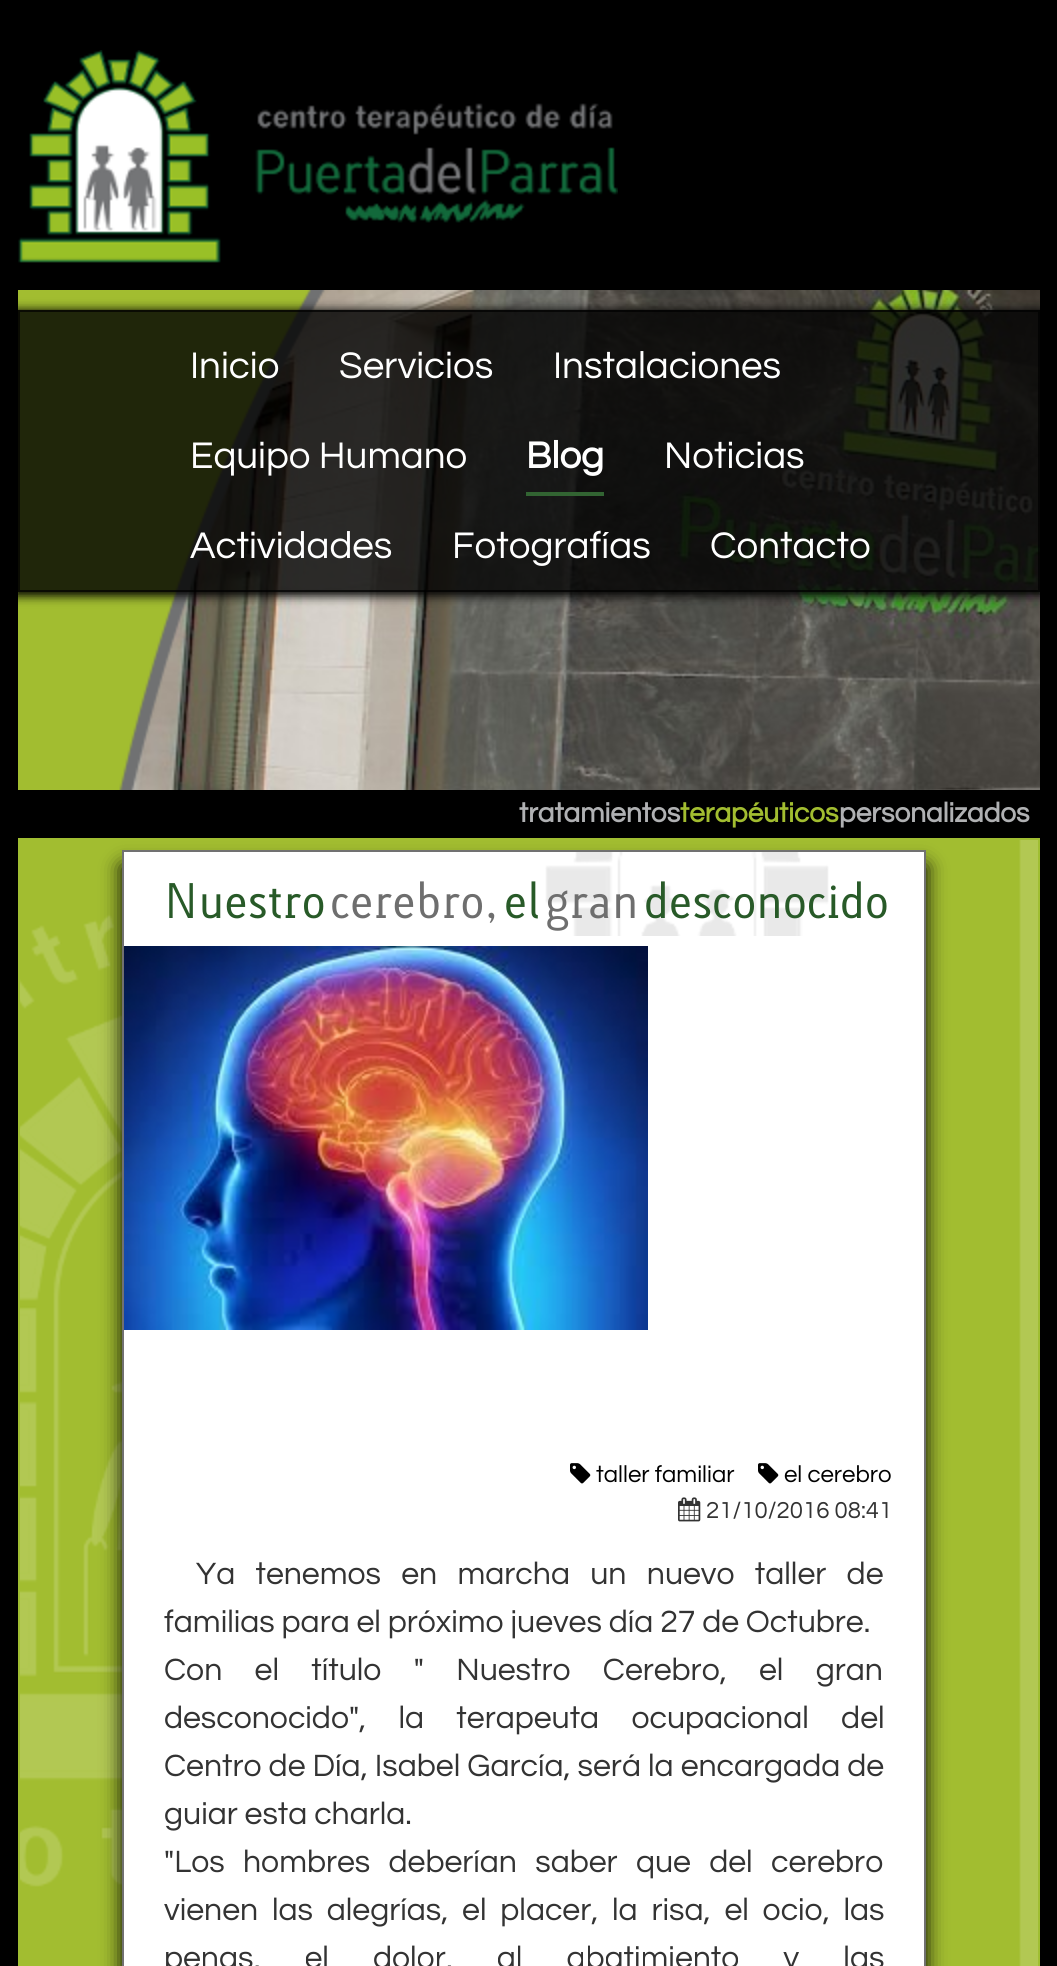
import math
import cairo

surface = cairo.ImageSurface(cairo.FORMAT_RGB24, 1057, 1966)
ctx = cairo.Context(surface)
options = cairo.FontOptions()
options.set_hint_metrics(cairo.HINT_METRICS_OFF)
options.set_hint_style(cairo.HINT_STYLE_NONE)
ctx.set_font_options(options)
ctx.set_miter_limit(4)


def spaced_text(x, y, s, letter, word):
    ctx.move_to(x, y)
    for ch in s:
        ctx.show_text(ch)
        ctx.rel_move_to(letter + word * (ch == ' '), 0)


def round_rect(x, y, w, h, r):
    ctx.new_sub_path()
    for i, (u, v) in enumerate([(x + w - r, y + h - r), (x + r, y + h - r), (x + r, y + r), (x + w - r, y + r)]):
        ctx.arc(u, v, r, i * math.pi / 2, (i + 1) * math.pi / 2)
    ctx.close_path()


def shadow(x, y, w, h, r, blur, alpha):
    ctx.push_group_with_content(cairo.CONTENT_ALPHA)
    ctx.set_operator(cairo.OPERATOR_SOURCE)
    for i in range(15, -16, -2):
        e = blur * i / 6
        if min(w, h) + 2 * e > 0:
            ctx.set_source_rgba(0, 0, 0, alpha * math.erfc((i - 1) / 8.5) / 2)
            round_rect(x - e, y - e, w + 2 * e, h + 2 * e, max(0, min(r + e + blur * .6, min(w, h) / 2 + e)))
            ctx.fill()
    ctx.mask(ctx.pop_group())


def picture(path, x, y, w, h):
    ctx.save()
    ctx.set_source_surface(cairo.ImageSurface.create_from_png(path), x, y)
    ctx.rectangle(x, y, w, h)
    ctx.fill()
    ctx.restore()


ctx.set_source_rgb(0, 0, 0)
ctx.paint()
picture("img1.png", 18, 50, 600, 213)
picture("img3.png", 131, 290, 909, 500)
picture("img2.png", 18, 290, 307, 500)
ctx.save()
ctx.rectangle(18, 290, 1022, 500)
ctx.clip()
ctx.set_fill_rule(cairo.FILL_RULE_EVEN_ODD)
ctx.new_path()
ctx.move_to(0, 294)
ctx.line_to(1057, 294)
ctx.line_to(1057, 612)
ctx.line_to(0, 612)
ctx.close_path()
ctx.move_to(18, 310)
ctx.line_to(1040, 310)
ctx.line_to(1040, 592)
ctx.line_to(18, 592)
ctx.close_path()
ctx.clip()
shadow(16, 310, 1026, 286, 0, 5, 1)
ctx.restore()
ctx.set_source_rgba(0, 0, 0, 0.8)
ctx.rectangle(18, 310, 1022, 282)
ctx.fill()
ctx.rectangle(19, 311, 1020, 280)
ctx.set_source_rgba(0, 0, 0, 0.7)
ctx.stroke()
ctx.select_font_face("Questrial")
ctx.set_font_size(38.5)
ctx.set_source_rgb(1, 1, 1)
ctx.move_to(190, 378)
ctx.show_text("Inicio")
ctx.move_to(339, 378)
ctx.show_text("Servicios")
ctx.move_to(553, 378)
ctx.show_text("Instalaciones")
ctx.move_to(190, 468)
ctx.show_text("Equipo Humano")
ctx.set_source_rgb(0.196, 0.392, 0.196)
ctx.rectangle(526, 492, 78, 4)
ctx.fill()
ctx.select_font_face("Questrial", cairo.FONT_SLANT_NORMAL, cairo.FONT_WEIGHT_BOLD)
ctx.set_source_rgb(1, 1, 1)
ctx.move_to(526, 468)
ctx.show_text("Blog")
ctx.select_font_face("Questrial")
ctx.move_to(664, 468)
ctx.show_text("Noticias")
ctx.move_to(190, 558)
ctx.show_text("Actividades")
ctx.move_to(452, 558)
ctx.show_text("Fotografías")
ctx.move_to(710, 558)
ctx.show_text("Contacto")
ctx.select_font_face("Questrial", cairo.FONT_SLANT_NORMAL, cairo.FONT_WEIGHT_BOLD)
ctx.set_font_size(28)
ctx.set_source_rgb(0.69, 0.694, 0.702)
ctx.move_to(519, 822)
ctx.show_text("tratamientos")
ctx.set_source_rgb(0.635, 0.741, 0.188)
ctx.move_to(680, 822)
ctx.show_text("terapéuticos")
ctx.set_source_rgb(0.69, 0.694, 0.702)
ctx.move_to(839, 822)
ctx.show_text("personalizados")
picture("img4.png", 20, 840, 1018, 1126)
ctx.rectangle(19, 839, 1020, 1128)
ctx.set_source_rgb(0.627, 0.745, 0.196)
ctx.stroke()
ctx.set_source_rgb(0, 0, 0)
shadow(122, 866, 804, 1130, 0, 10, 1)
ctx.set_source_rgb(1, 1, 1)
ctx.rectangle(123, 851, 802, 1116)
ctx.fill_preserve()
ctx.set_source_rgb(0.443, 0.443, 0.443)
ctx.stroke()
picture("img5.png", 545, 852, 284, 84)
ctx.select_font_face("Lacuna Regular")
ctx.set_font_size(44.75)
ctx.set_source_rgb(0.157, 0.353, 0.157)
ctx.move_to(164, 918)
ctx.show_text("Nuestro")
ctx.set_source_rgb(0.431, 0.431, 0.431)
ctx.move_to(330, 918)
ctx.show_text("cerebro,")
ctx.set_source_rgb(0.157, 0.353, 0.157)
ctx.move_to(504, 918)
ctx.show_text("el")
ctx.set_source_rgb(0.431, 0.431, 0.431)
ctx.move_to(545, 918)
ctx.show_text("gran")
ctx.set_source_rgb(0.157, 0.353, 0.157)
ctx.move_to(644, 918)
ctx.show_text("desconocido")
picture("img6.png", 124, 946, 524, 384)
picture("img7.png", 570, 1463, 21, 21)
ctx.select_font_face("Questrial")
ctx.set_font_size(24)
ctx.set_source_rgb(0, 0, 0)
ctx.move_to(596, 1482)
ctx.show_text("taller familiar")
picture("img7.png", 758, 1463, 21, 21)
ctx.move_to(784, 1482)
ctx.show_text("el cerebro")
picture("img8.png", 678, 1497, 23, 25)
ctx.set_source_rgb(0.2, 0.2, 0.2)
ctx.move_to(706, 1518)
ctx.show_text("21/10/2016 08:41")
ctx.set_font_size(32)
spaced_text(196, 1584, "Ya tenemos en marcha un nuevo taller de", 0, 13.5)
ctx.move_to(164, 1632)
ctx.show_text("familias para el próximo jueves día 27 de Octubre.")
spaced_text(164, 1680, "Con el título \" Nuestro Cerebro, el gran", 0, 25.5)
spaced_text(164, 1728, "desconocido\", la terapeuta ocupacional del", 0, 25.5)
spaced_text(164, 1776, "Centro de Día, Isabel García, será la encargada de", 0, 0.25)
ctx.move_to(164, 1824)
ctx.show_text("guiar esta charla.")
spaced_text(164, 1872, "\"Los hombres deberían saber que del cerebro", 0, 11.5)
spaced_text(164, 1920, "vienen las alegrías, el placer, la risa, el ocio, las", 0, 7)
spaced_text(164, 1968, "penas, el dolor, al abatimiento y las", 0, 37.25)
surface.write_to_png("page.png")
